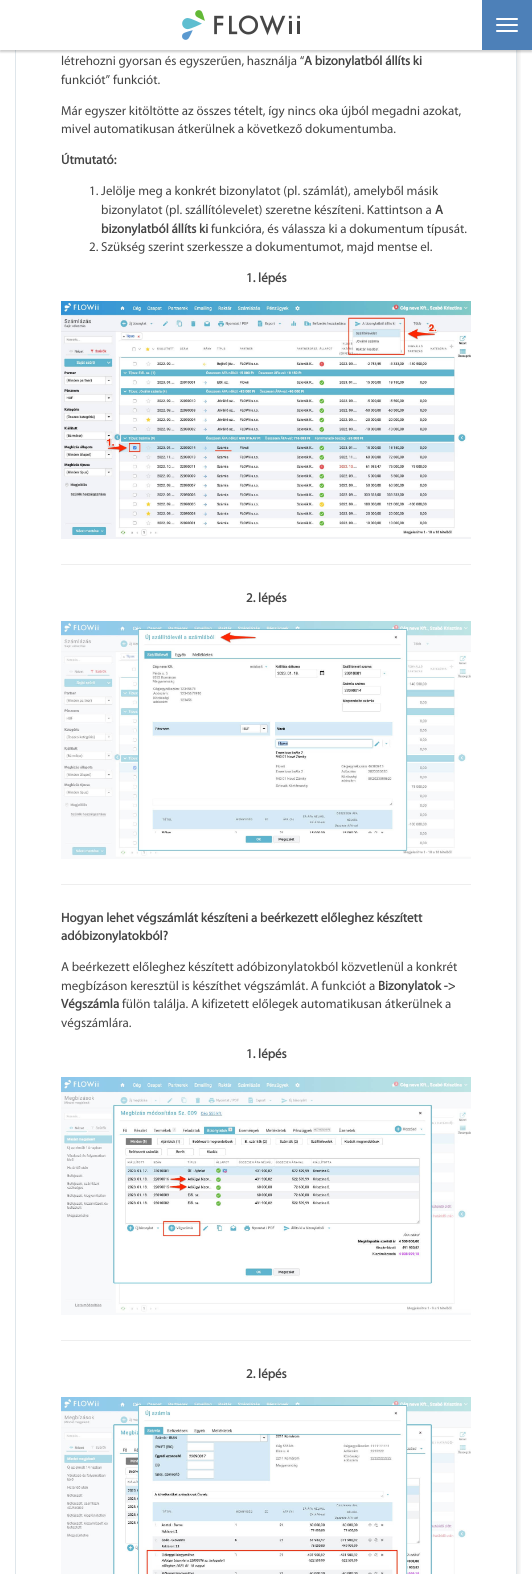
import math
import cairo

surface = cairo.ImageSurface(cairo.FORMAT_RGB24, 532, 1574)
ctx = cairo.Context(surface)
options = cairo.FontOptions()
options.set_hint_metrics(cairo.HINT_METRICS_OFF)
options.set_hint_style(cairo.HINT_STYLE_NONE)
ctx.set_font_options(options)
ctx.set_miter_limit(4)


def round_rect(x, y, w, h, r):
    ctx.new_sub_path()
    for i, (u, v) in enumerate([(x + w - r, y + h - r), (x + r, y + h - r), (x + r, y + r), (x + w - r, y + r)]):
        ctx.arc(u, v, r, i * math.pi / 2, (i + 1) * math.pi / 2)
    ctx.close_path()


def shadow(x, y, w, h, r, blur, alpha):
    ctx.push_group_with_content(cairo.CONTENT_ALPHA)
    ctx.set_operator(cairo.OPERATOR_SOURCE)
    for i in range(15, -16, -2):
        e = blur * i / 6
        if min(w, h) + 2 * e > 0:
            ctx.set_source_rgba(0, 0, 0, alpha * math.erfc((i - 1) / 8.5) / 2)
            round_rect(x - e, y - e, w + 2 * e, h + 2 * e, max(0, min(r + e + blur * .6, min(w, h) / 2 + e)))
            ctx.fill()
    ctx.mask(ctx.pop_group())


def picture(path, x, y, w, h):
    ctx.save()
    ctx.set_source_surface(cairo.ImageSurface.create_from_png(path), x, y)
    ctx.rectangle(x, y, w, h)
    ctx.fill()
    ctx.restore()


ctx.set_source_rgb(1, 1, 1)
ctx.paint()
ctx.save()
ctx.rectangle(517, 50, 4, 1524)
ctx.clip()
ctx.set_source_rgb(0, 0, 0)
shadow(17, -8, 502, 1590, 0, 2.5, 0.1)
ctx.restore()
ctx.rectangle(15.5, -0.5, 501, 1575)
ctx.set_source_rgb(0.875, 0.902, 0.918)
ctx.set_line_width(1)
ctx.stroke()
ctx.set_source_rgb(0, 0, 0)
shadow(0, 2, 532, 50, 0, 1, 0.2)
ctx.set_source_rgb(1, 1, 1)
ctx.rectangle(0, 0, 482, 50)
ctx.fill()
picture("img1.png", 182, 10, 118, 30)
ctx.set_source_rgb(0.302, 0.502, 0.722)
ctx.rectangle(482, 0, 50, 50)
ctx.fill()
ctx.set_source_rgb(1, 1, 1)
round_rect(496, 18, 22, 2, 1)
ctx.fill()
round_rect(496, 24, 22, 2, 1)
ctx.fill()
round_rect(496, 30, 22, 2, 1)
ctx.fill()
ctx.select_font_face("Myriad")
ctx.set_font_size(13)
ctx.set_source_rgb(0.267, 0.267, 0.267)
ctx.move_to(61, 65)
ctx.show_text("létrehozni gyorsan és egyszerűen, használja “")
ctx.select_font_face("Myriad", cairo.FONT_SLANT_NORMAL, cairo.FONT_WEIGHT_BOLD)
ctx.move_to(304, 65)
ctx.show_text("A bizonylatból állíts ki")
ctx.select_font_face("Myriad")
ctx.move_to(61, 84)
ctx.show_text("funkciót” funkciót.")
ctx.move_to(61, 115)
ctx.show_text("Már egyszer kitöltötte az összes tételt, így nincs oka újból megadni azokat,")
ctx.move_to(61, 133)
ctx.show_text("mivel automatikusan átkerülnek a következő dokumentumba.")
ctx.select_font_face("Myriad", cairo.FONT_SLANT_NORMAL, cairo.FONT_WEIGHT_BOLD)
ctx.move_to(61, 164)
ctx.show_text("Útmutató:")
ctx.select_font_face("Myriad")
ctx.move_to(89, 195)
ctx.show_text("1. Jelölje meg a konkrét bizonylatot (pl. számlát), amelyből másik")
ctx.move_to(101, 214)
ctx.show_text("bizonylatot (pl. szállítólevelet) szeretne készíteni. Kattintson a")
ctx.select_font_face("Myriad", cairo.FONT_SLANT_NORMAL, cairo.FONT_WEIGHT_BOLD)
ctx.move_to(435, 214)
ctx.show_text("A")
ctx.move_to(101, 233)
ctx.show_text("bizonylatból állíts ki")
ctx.select_font_face("Myriad")
ctx.move_to(211, 233)
ctx.show_text("funkcióra, és válassza ki a dokumentum típusát.")
ctx.move_to(89, 251)
ctx.show_text("2. Szükség szerint szerkessze a dokumentumot, majd mentse el.")
ctx.select_font_face("Myriad", cairo.FONT_SLANT_NORMAL, cairo.FONT_WEIGHT_BOLD)
ctx.move_to(246, 282)
ctx.show_text("1. lépés")
picture("img2.png", 61, 301, 410, 238)
ctx.set_source_rgb(0.933, 0.933, 0.933)
ctx.rectangle(61, 564, 410, 1)
ctx.fill()
ctx.set_source_rgb(0.267, 0.267, 0.267)
ctx.move_to(246, 602)
ctx.show_text("2. lépés")
picture("img3.png", 61, 621, 410, 238)
ctx.set_source_rgb(0.933, 0.933, 0.933)
ctx.rectangle(61, 884, 410, 1)
ctx.fill()
ctx.set_source_rgb(0.267, 0.267, 0.267)
ctx.move_to(61, 922)
ctx.show_text("Hogyan lehet végszámlát készíteni a beérkezett előleghez készített")
ctx.move_to(61, 940)
ctx.show_text("adóbizonylatokból?")
ctx.select_font_face("Myriad")
ctx.move_to(61, 971)
ctx.show_text("A beérkezett előleghez készített adóbizonylatokból közvetlenül a konkrét")
ctx.move_to(61, 990)
ctx.show_text("megbízáson keresztül is készíthet végszámlát. A funkciót a")
ctx.select_font_face("Myriad", cairo.FONT_SLANT_NORMAL, cairo.FONT_WEIGHT_BOLD)
ctx.move_to(378, 990)
ctx.show_text("Bizonylatok ->")
ctx.move_to(61, 1008)
ctx.show_text("Végszámla")
ctx.select_font_face("Myriad")
ctx.move_to(122, 1008)
ctx.show_text("fülön találja. A kifizetett előlegek automatikusan átkerülnek a")
ctx.move_to(61, 1027)
ctx.show_text("végszámlára.")
ctx.select_font_face("Myriad", cairo.FONT_SLANT_NORMAL, cairo.FONT_WEIGHT_BOLD)
ctx.move_to(246, 1058)
ctx.show_text("1. lépés")
picture("img4.png", 61, 1077, 410, 238)
ctx.set_source_rgb(0.933, 0.933, 0.933)
ctx.rectangle(61, 1340, 410, 1)
ctx.fill()
ctx.set_source_rgb(0.267, 0.267, 0.267)
ctx.move_to(246, 1378)
ctx.show_text("2. lépés")
picture("img5.png", 61, 1397, 410, 177)
surface.write_to_png("page.png")
